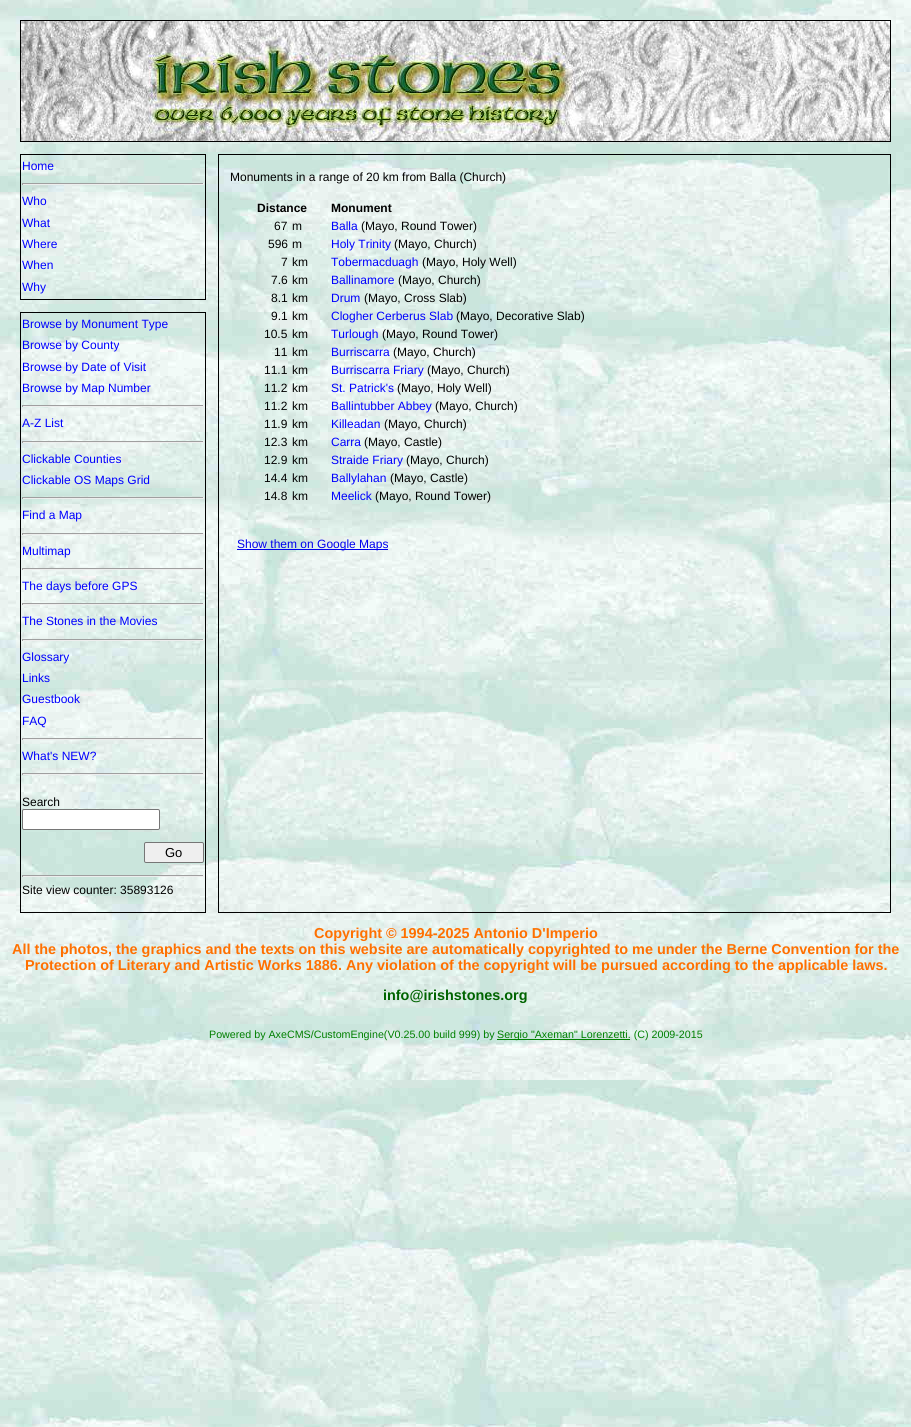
import math
import cairo

surface = cairo.ImageSurface(cairo.FORMAT_RGB24, 911, 1427)
ctx = cairo.Context(surface)
options = cairo.FontOptions()
options.set_hint_metrics(cairo.HINT_METRICS_OFF)
options.set_hint_style(cairo.HINT_STYLE_NONE)
ctx.set_font_options(options)
ctx.set_miter_limit(4)


def round_rect(x, y, w, h, r):
    ctx.new_sub_path()
    for i, (u, v) in enumerate([(x + w - r, y + h - r), (x + r, y + h - r), (x + r, y + r), (x + w - r, y + r)]):
        ctx.arc(u, v, r, i * math.pi / 2, (i + 1) * math.pi / 2)
    ctx.close_path()


def picture(path, x, y, w, h):
    ctx.save()
    ctx.set_source_surface(cairo.ImageSurface.create_from_png(path), x, y)
    ctx.rectangle(x, y, w, h)
    ctx.fill()
    ctx.restore()


ctx.set_source_rgb(1, 1, 1)
ctx.paint()
picture("img1.png", 0, 0, 911, 1427)
picture("img2.png", 21, 21, 869, 120)
ctx.rectangle(20.5, 20.5, 870, 121)
ctx.set_source_rgb(0, 0, 0)
ctx.set_line_width(1)
ctx.stroke()
ctx.rectangle(20.5, 154.5, 185, 145)
ctx.stroke()
ctx.select_font_face("Liberation Sans")
ctx.set_font_size(12)
ctx.set_source_rgb(0, 0, 1)
ctx.move_to(22, 170)
ctx.show_text("Home")
ctx.set_source_rgb(0.624, 0.624, 0.624)
ctx.rectangle(22, 183, 182, 1)
ctx.fill()
ctx.set_source_rgb(0.933, 0.933, 0.933)
ctx.rectangle(203, 183, 1, 2)
ctx.fill()
ctx.rectangle(22, 184, 182, 1)
ctx.fill()
ctx.set_source_rgb(0.624, 0.624, 0.624)
ctx.rectangle(22, 183, 1, 2)
ctx.fill()
ctx.set_source_rgb(0, 0, 1)
ctx.move_to(22, 205)
ctx.show_text("Who")
ctx.move_to(22, 227)
ctx.show_text("What")
ctx.move_to(22, 248)
ctx.show_text("Where")
ctx.move_to(22, 269)
ctx.show_text("When")
ctx.move_to(22, 291)
ctx.show_text("Why")
ctx.rectangle(218.5, 154.5, 672, 758)
ctx.set_source_rgb(0, 0, 0)
ctx.stroke()
ctx.move_to(230, 181)
ctx.show_text("Monuments in a range of 20 km from Balla (Church)")
ctx.select_font_face("Liberation Sans", cairo.FONT_SLANT_NORMAL, cairo.FONT_WEIGHT_BOLD)
ctx.move_to(257, 212)
ctx.show_text("Distance")
ctx.move_to(331, 212)
ctx.show_text("Monument")
ctx.select_font_face("Liberation Sans")
ctx.move_to(274, 230)
ctx.show_text("67")
ctx.move_to(292, 230)
ctx.show_text("m")
ctx.set_source_rgb(0, 0, 1)
ctx.move_to(331, 230)
ctx.show_text("Balla")
ctx.set_source_rgb(0, 0, 0)
ctx.move_to(361, 230)
ctx.show_text("(Mayo, Round Tower)")
ctx.move_to(268, 248)
ctx.show_text("596")
ctx.move_to(292, 248)
ctx.show_text("m")
ctx.set_source_rgb(0, 0, 1)
ctx.move_to(331, 248)
ctx.show_text("Holy Trinity")
ctx.set_source_rgb(0, 0, 0)
ctx.move_to(394, 248)
ctx.show_text("(Mayo, Church)")
ctx.move_to(281, 266)
ctx.show_text("7")
ctx.move_to(292, 266)
ctx.show_text("km")
ctx.set_source_rgb(0, 0, 1)
ctx.move_to(331, 266)
ctx.show_text("Tobermacduagh")
ctx.set_source_rgb(0, 0, 0)
ctx.move_to(422, 266)
ctx.show_text("(Mayo, Holy Well)")
ctx.move_to(271, 284)
ctx.show_text("7.6")
ctx.move_to(292, 284)
ctx.show_text("km")
ctx.set_source_rgb(0, 0, 1)
ctx.move_to(331, 284)
ctx.show_text("Ballinamore")
ctx.set_source_rgb(0, 0, 0)
ctx.move_to(398, 284)
ctx.show_text("(Mayo, Church)")
ctx.move_to(271, 302)
ctx.show_text("8.1")
ctx.move_to(292, 302)
ctx.show_text("km")
ctx.set_source_rgb(0, 0, 1)
ctx.move_to(331, 302)
ctx.show_text("Drum")
ctx.set_source_rgb(0, 0, 0)
ctx.move_to(364, 302)
ctx.show_text("(Mayo, Cross Slab)")
ctx.move_to(271, 320)
ctx.show_text("9.1")
ctx.move_to(292, 320)
ctx.show_text("km")
ctx.set_source_rgb(0, 0, 1)
ctx.move_to(331, 320)
ctx.show_text("Clogher Cerberus Slab")
ctx.set_source_rgb(0, 0, 0)
ctx.move_to(456, 320)
ctx.show_text("(Mayo, Decorative Slab)")
ctx.move_to(264, 338)
ctx.show_text("10.5")
ctx.move_to(292, 338)
ctx.show_text("km")
ctx.set_source_rgb(0, 0, 1)
ctx.move_to(331, 338)
ctx.show_text("Turlough")
ctx.set_source_rgb(0, 0, 0)
ctx.move_to(382, 338)
ctx.show_text("(Mayo, Round Tower)")
ctx.move_to(274, 356)
ctx.show_text("11")
ctx.move_to(292, 356)
ctx.show_text("km")
ctx.set_source_rgb(0, 0, 1)
ctx.move_to(331, 356)
ctx.show_text("Burriscarra")
ctx.set_source_rgb(0, 0, 0)
ctx.move_to(393, 356)
ctx.show_text("(Mayo, Church)")
ctx.move_to(264, 374)
ctx.show_text("11.1")
ctx.move_to(292, 374)
ctx.show_text("km")
ctx.set_source_rgb(0, 0, 1)
ctx.move_to(331, 374)
ctx.show_text("Burriscarra Friary")
ctx.set_source_rgb(0, 0, 0)
ctx.move_to(427, 374)
ctx.show_text("(Mayo, Church)")
ctx.move_to(264, 392)
ctx.show_text("11.2")
ctx.move_to(292, 392)
ctx.show_text("km")
ctx.set_source_rgb(0, 0, 1)
ctx.move_to(331, 392)
ctx.show_text("St. Patrick's")
ctx.set_source_rgb(0, 0, 0)
ctx.move_to(397, 392)
ctx.show_text("(Mayo, Holy Well)")
ctx.move_to(264, 410)
ctx.show_text("11.2")
ctx.move_to(292, 410)
ctx.show_text("km")
ctx.set_source_rgb(0, 0, 1)
ctx.move_to(331, 410)
ctx.show_text("Ballintubber Abbey")
ctx.set_source_rgb(0, 0, 0)
ctx.move_to(435, 410)
ctx.show_text("(Mayo, Church)")
ctx.move_to(264, 428)
ctx.show_text("11.9")
ctx.move_to(292, 428)
ctx.show_text("km")
ctx.set_source_rgb(0, 0, 1)
ctx.move_to(331, 428)
ctx.show_text("Killeadan")
ctx.set_source_rgb(0, 0, 0)
ctx.move_to(384, 428)
ctx.show_text("(Mayo, Church)")
ctx.move_to(264, 446)
ctx.show_text("12.3")
ctx.move_to(292, 446)
ctx.show_text("km")
ctx.set_source_rgb(0, 0, 1)
ctx.move_to(331, 446)
ctx.show_text("Carra")
ctx.set_source_rgb(0, 0, 0)
ctx.move_to(364, 446)
ctx.show_text("(Mayo, Castle)")
ctx.move_to(264, 464)
ctx.show_text("12.9")
ctx.move_to(292, 464)
ctx.show_text("km")
ctx.set_source_rgb(0, 0, 1)
ctx.move_to(331, 464)
ctx.show_text("Straide Friary")
ctx.set_source_rgb(0, 0, 0)
ctx.move_to(406, 464)
ctx.show_text("(Mayo, Church)")
ctx.move_to(264, 482)
ctx.show_text("14.4")
ctx.move_to(292, 482)
ctx.show_text("km")
ctx.set_source_rgb(0, 0, 1)
ctx.move_to(331, 482)
ctx.show_text("Ballylahan")
ctx.set_source_rgb(0, 0, 0)
ctx.move_to(390, 482)
ctx.show_text("(Mayo, Castle)")
ctx.move_to(264, 500)
ctx.show_text("14.8")
ctx.move_to(292, 500)
ctx.show_text("km")
ctx.set_source_rgb(0, 0, 1)
ctx.move_to(331, 500)
ctx.show_text("Meelick")
ctx.set_source_rgb(0, 0, 0)
ctx.move_to(375, 500)
ctx.show_text("(Mayo, Round Tower)")
ctx.set_source_rgb(0, 0, 0.933)
ctx.rectangle(237, 549, 151, 1)
ctx.fill()
ctx.move_to(237, 548)
ctx.show_text("Show them on Google Maps")
ctx.rectangle(20.5, 312.5, 185, 600)
ctx.set_source_rgb(0, 0, 0)
ctx.stroke()
ctx.set_source_rgb(0, 0, 1)
ctx.move_to(22, 328)
ctx.show_text("Browse by Monument Type")
ctx.move_to(22, 349)
ctx.show_text("Browse by County")
ctx.move_to(22, 371)
ctx.show_text("Browse by Date of Visit")
ctx.move_to(22, 392)
ctx.show_text("Browse by Map Number")
ctx.set_source_rgb(0.624, 0.624, 0.624)
ctx.rectangle(22, 405, 182, 1)
ctx.fill()
ctx.set_source_rgb(0.933, 0.933, 0.933)
ctx.rectangle(203, 405, 1, 2)
ctx.fill()
ctx.rectangle(22, 406, 182, 1)
ctx.fill()
ctx.set_source_rgb(0.624, 0.624, 0.624)
ctx.rectangle(22, 405, 1, 2)
ctx.fill()
ctx.set_source_rgb(0, 0, 1)
ctx.move_to(22, 427)
ctx.show_text("A-Z List")
ctx.set_source_rgb(0.624, 0.624, 0.624)
ctx.rectangle(22, 441, 182, 1)
ctx.fill()
ctx.set_source_rgb(0.933, 0.933, 0.933)
ctx.rectangle(203, 441, 1, 2)
ctx.fill()
ctx.rectangle(22, 442, 182, 1)
ctx.fill()
ctx.set_source_rgb(0.624, 0.624, 0.624)
ctx.rectangle(22, 441, 1, 2)
ctx.fill()
ctx.set_source_rgb(0, 0, 1)
ctx.move_to(22, 463)
ctx.show_text("Clickable Counties")
ctx.move_to(22, 484)
ctx.show_text("Clickable OS Maps Grid")
ctx.set_source_rgb(0.624, 0.624, 0.624)
ctx.rectangle(22, 497, 182, 1)
ctx.fill()
ctx.set_source_rgb(0.933, 0.933, 0.933)
ctx.rectangle(203, 497, 1, 2)
ctx.fill()
ctx.rectangle(22, 498, 182, 1)
ctx.fill()
ctx.set_source_rgb(0.624, 0.624, 0.624)
ctx.rectangle(22, 497, 1, 2)
ctx.fill()
ctx.set_source_rgb(0, 0, 1)
ctx.move_to(22, 519)
ctx.show_text("Find a Map")
ctx.set_source_rgb(0.624, 0.624, 0.624)
ctx.rectangle(22, 533, 182, 1)
ctx.fill()
ctx.set_source_rgb(0.933, 0.933, 0.933)
ctx.rectangle(203, 533, 1, 2)
ctx.fill()
ctx.rectangle(22, 534, 182, 1)
ctx.fill()
ctx.set_source_rgb(0.624, 0.624, 0.624)
ctx.rectangle(22, 533, 1, 2)
ctx.fill()
ctx.set_source_rgb(0, 0, 1)
ctx.move_to(22, 555)
ctx.show_text("Multimap")
ctx.set_source_rgb(0.624, 0.624, 0.624)
ctx.rectangle(22, 568, 182, 1)
ctx.fill()
ctx.set_source_rgb(0.933, 0.933, 0.933)
ctx.rectangle(203, 568, 1, 2)
ctx.fill()
ctx.rectangle(22, 569, 182, 1)
ctx.fill()
ctx.set_source_rgb(0.624, 0.624, 0.624)
ctx.rectangle(22, 568, 1, 2)
ctx.fill()
ctx.set_source_rgb(0, 0, 1)
ctx.move_to(22, 590)
ctx.show_text("The days before GPS")
ctx.set_source_rgb(0.624, 0.624, 0.624)
ctx.rectangle(22, 603, 182, 1)
ctx.fill()
ctx.set_source_rgb(0.933, 0.933, 0.933)
ctx.rectangle(203, 603, 1, 2)
ctx.fill()
ctx.rectangle(22, 604, 182, 1)
ctx.fill()
ctx.set_source_rgb(0.624, 0.624, 0.624)
ctx.rectangle(22, 603, 1, 2)
ctx.fill()
ctx.set_source_rgb(0, 0, 1)
ctx.move_to(22, 625)
ctx.show_text("The Stones in the Movies")
ctx.set_source_rgb(0.624, 0.624, 0.624)
ctx.rectangle(22, 639, 182, 1)
ctx.fill()
ctx.set_source_rgb(0.933, 0.933, 0.933)
ctx.rectangle(203, 639, 1, 2)
ctx.fill()
ctx.rectangle(22, 640, 182, 1)
ctx.fill()
ctx.set_source_rgb(0.624, 0.624, 0.624)
ctx.rectangle(22, 639, 1, 2)
ctx.fill()
ctx.set_source_rgb(0, 0, 1)
ctx.move_to(22, 661)
ctx.show_text("Glossary")
ctx.move_to(22, 682)
ctx.show_text("Links")
ctx.move_to(22, 703)
ctx.show_text("Guestbook")
ctx.move_to(22, 725)
ctx.show_text("FAQ")
ctx.set_source_rgb(0.624, 0.624, 0.624)
ctx.rectangle(22, 738, 182, 1)
ctx.fill()
ctx.set_source_rgb(0.933, 0.933, 0.933)
ctx.rectangle(203, 738, 1, 2)
ctx.fill()
ctx.rectangle(22, 739, 182, 1)
ctx.fill()
ctx.set_source_rgb(0.624, 0.624, 0.624)
ctx.rectangle(22, 738, 1, 2)
ctx.fill()
ctx.set_source_rgb(0, 0, 1)
ctx.move_to(22, 760)
ctx.show_text("What's NEW?")
ctx.set_source_rgb(0.624, 0.624, 0.624)
ctx.rectangle(22, 773, 182, 1)
ctx.fill()
ctx.set_source_rgb(0.933, 0.933, 0.933)
ctx.rectangle(203, 773, 1, 2)
ctx.fill()
ctx.rectangle(22, 774, 182, 1)
ctx.fill()
ctx.set_source_rgb(0.624, 0.624, 0.624)
ctx.rectangle(22, 773, 1, 2)
ctx.fill()
ctx.set_source_rgb(0, 0, 0)
ctx.move_to(22, 806)
ctx.show_text("Search")
ctx.set_source_rgb(1, 1, 1)
round_rect(22.5, 809.5, 137, 20, 1.5)
ctx.fill_preserve()
ctx.set_source_rgb(0.463, 0.463, 0.463)
ctx.stroke()
ctx.set_source_rgb(0.937, 0.937, 0.937)
round_rect(144.5, 842.5, 59, 20, 1.5)
ctx.fill_preserve()
ctx.set_source_rgb(0.463, 0.463, 0.463)
ctx.stroke()
ctx.set_font_size(13)
ctx.set_source_rgb(0, 0, 0)
ctx.move_to(165, 857)
ctx.show_text("Go")
ctx.set_source_rgb(0.624, 0.624, 0.624)
ctx.rectangle(22, 875, 182, 1)
ctx.fill()
ctx.set_source_rgb(0.933, 0.933, 0.933)
ctx.rectangle(203, 875, 1, 2)
ctx.fill()
ctx.rectangle(22, 876, 182, 1)
ctx.fill()
ctx.set_source_rgb(0.624, 0.624, 0.624)
ctx.rectangle(22, 875, 1, 2)
ctx.fill()
ctx.set_font_size(12)
ctx.set_source_rgb(0, 0, 0)
ctx.move_to(22, 894)
ctx.show_text("Site view counter: 35893126")
ctx.select_font_face("Liberation Sans", cairo.FONT_SLANT_NORMAL, cairo.FONT_WEIGHT_BOLD)
ctx.set_font_size(14.4)
ctx.set_source_rgb(1, 0.439, 0)
ctx.move_to(314, 938)
ctx.show_text("Copyright © 1994-2025 Antonio D'Imperio")
ctx.move_to(12, 954)
ctx.show_text("All the photos, the graphics and the texts on this website are automatically copyrighted to me under the Berne Convention for the")
ctx.move_to(25, 970)
ctx.show_text("Protection of Literary and Artistic Works 1886. Any violation of the copyright will be pursued according to the applicable laws.")
ctx.set_source_rgb(0, 0.392, 0)
ctx.move_to(383, 1000)
ctx.show_text("info@irishstones.org")
ctx.select_font_face("Liberation Sans")
ctx.set_font_size(10.7)
ctx.set_source_rgb(0, 0.502, 0)
ctx.move_to(209, 1038)
ctx.show_text("Powered by AxeCMS/CustomEngine(V0.25.00 build 999) by")
ctx.rectangle(497, 1039, 133, 1)
ctx.fill()
ctx.move_to(497, 1038)
ctx.show_text("Sergio \"Axeman\" Lorenzetti. (C) 2009-2015")
surface.write_to_png("page.png")
